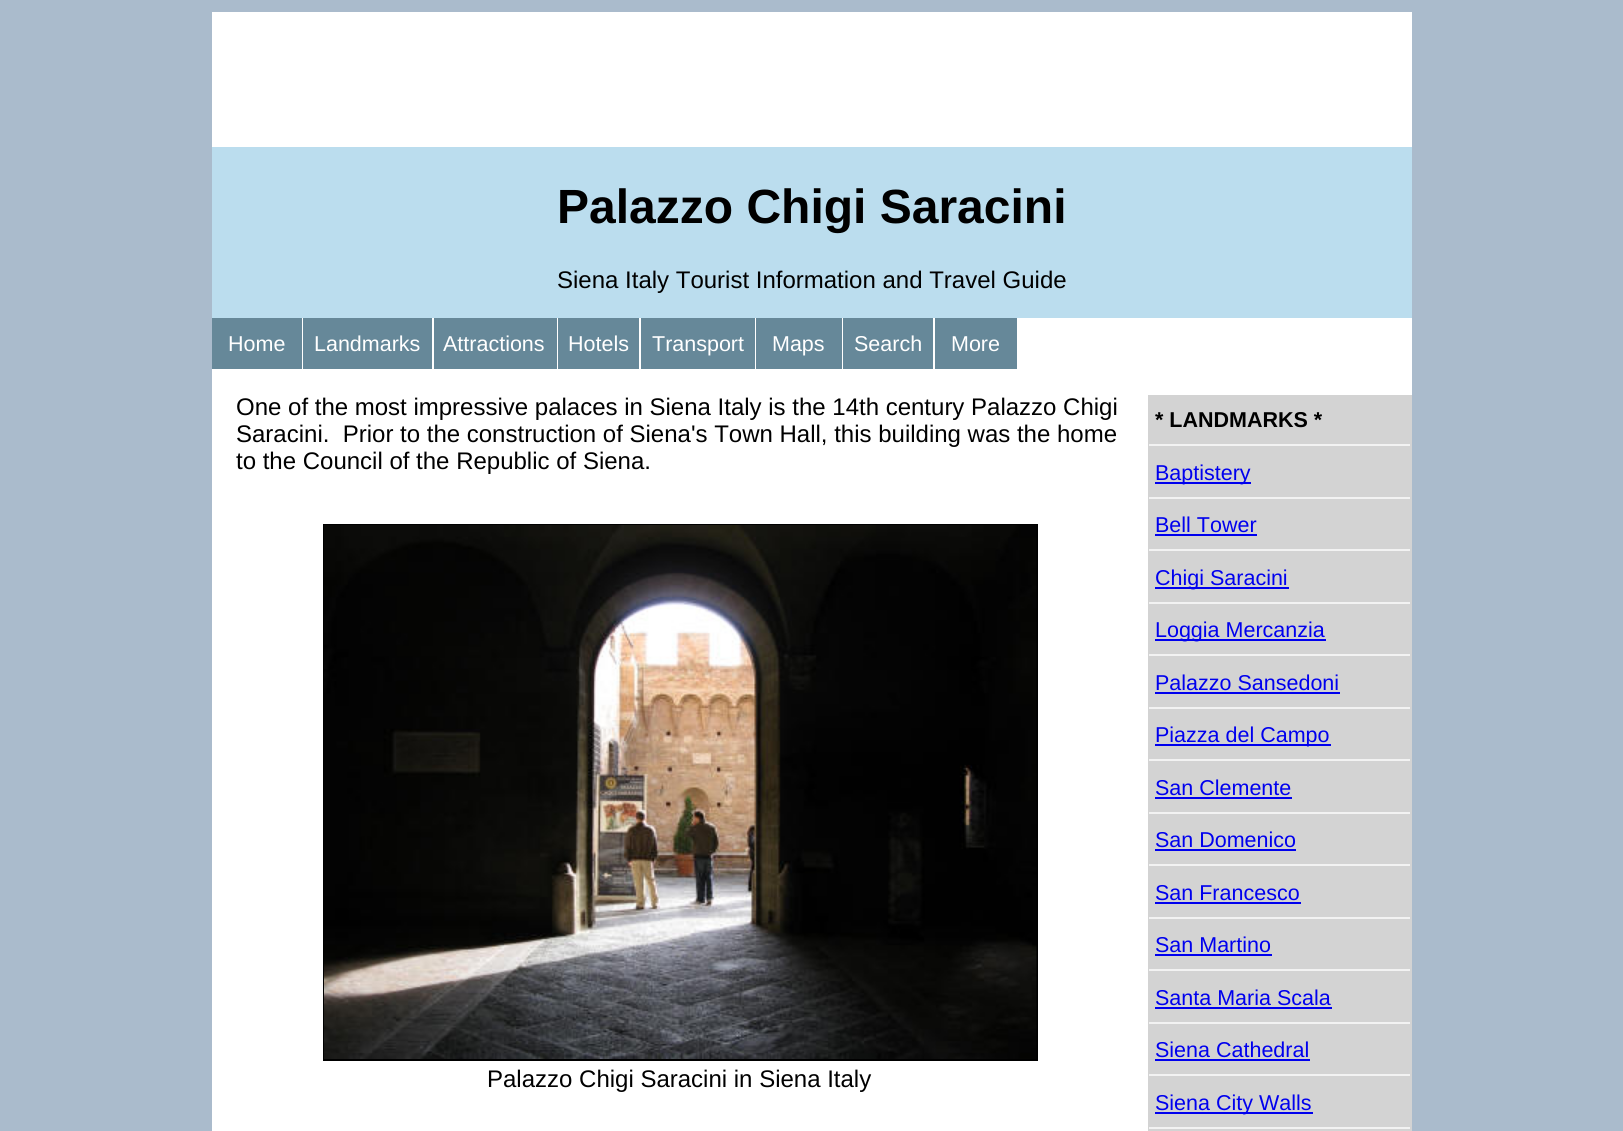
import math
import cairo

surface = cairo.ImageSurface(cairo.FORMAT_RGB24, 1623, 1131)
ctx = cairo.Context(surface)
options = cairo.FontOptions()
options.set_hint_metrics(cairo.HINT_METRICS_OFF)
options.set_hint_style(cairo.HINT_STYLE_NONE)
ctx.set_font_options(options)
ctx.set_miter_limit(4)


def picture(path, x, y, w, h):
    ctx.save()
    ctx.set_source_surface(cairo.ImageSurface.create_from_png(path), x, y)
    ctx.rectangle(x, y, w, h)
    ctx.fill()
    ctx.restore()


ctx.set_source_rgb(0.667, 0.733, 0.8)
ctx.paint()
ctx.set_source_rgb(1, 1, 1)
ctx.rectangle(212, 12, 1200, 1119)
ctx.fill()
ctx.set_source_rgb(0.733, 0.867, 0.933)
ctx.rectangle(212, 147, 1200, 171)
ctx.fill()
ctx.select_font_face("Liberation Sans", cairo.FONT_SLANT_NORMAL, cairo.FONT_WEIGHT_BOLD)
ctx.set_font_size(48)
ctx.set_source_rgb(0, 0, 0)
ctx.move_to(557, 223)
ctx.show_text("Palazzo Chigi Saracini")
ctx.select_font_face("Liberation Sans")
ctx.set_font_size(24)
ctx.move_to(557, 288)
ctx.show_text("Siena Italy Tourist Information and Travel Guide")
ctx.set_source_rgb(0.4, 0.533, 0.6)
ctx.rectangle(212, 318, 90, 51)
ctx.fill()
ctx.set_font_size(21.5)
ctx.set_source_rgb(1, 1, 1)
ctx.move_to(228, 351)
ctx.show_text("Home")
ctx.set_source_rgb(0.4, 0.533, 0.6)
ctx.rectangle(303, 318, 129, 51)
ctx.fill()
ctx.set_source_rgb(1, 1, 1)
ctx.move_to(314, 351)
ctx.show_text("Landmarks")
ctx.set_source_rgb(0.4, 0.533, 0.6)
ctx.rectangle(434, 318, 123, 51)
ctx.fill()
ctx.set_source_rgb(1, 1, 1)
ctx.move_to(443, 351)
ctx.show_text("Attractions")
ctx.set_source_rgb(0.4, 0.533, 0.6)
ctx.rectangle(558, 318, 81, 51)
ctx.fill()
ctx.set_source_rgb(1, 1, 1)
ctx.move_to(568, 351)
ctx.show_text("Hotels")
ctx.set_source_rgb(0.4, 0.533, 0.6)
ctx.rectangle(641, 318, 114, 51)
ctx.fill()
ctx.set_source_rgb(1, 1, 1)
ctx.move_to(652, 351)
ctx.show_text("Transport")
ctx.set_source_rgb(0.4, 0.533, 0.6)
ctx.rectangle(756, 318, 86, 51)
ctx.fill()
ctx.set_source_rgb(1, 1, 1)
ctx.move_to(772, 351)
ctx.show_text("Maps")
ctx.set_source_rgb(0.4, 0.533, 0.6)
ctx.rectangle(843, 318, 90, 51)
ctx.fill()
ctx.set_source_rgb(1, 1, 1)
ctx.move_to(854, 351)
ctx.show_text("Search")
ctx.set_source_rgb(0.4, 0.533, 0.6)
ctx.rectangle(935, 318, 82, 51)
ctx.fill()
ctx.set_source_rgb(1, 1, 1)
ctx.move_to(951, 351)
ctx.show_text("More")
ctx.set_font_size(24)
ctx.set_source_rgb(0, 0, 0)
ctx.move_to(236, 415)
ctx.show_text("One of the most impressive palaces in Siena Italy is the 14th century Palazzo Chigi")
ctx.move_to(236, 442)
ctx.show_text("Saracini.  Prior to the construction of Siena's Town Hall, this building was the home")
ctx.move_to(236, 469)
ctx.show_text("to the Council of the Republic of Siena.")
ctx.rectangle(324, 525, 713, 535)
ctx.stroke()
picture("img1.png", 324, 525, 713, 534)
ctx.move_to(487, 1087)
ctx.show_text("Palazzo Chigi Saracini in Siena Italy")
ctx.set_source_rgb(0.827, 0.827, 0.827)
ctx.rectangle(1148, 395, 264, 736)
ctx.fill()
ctx.set_source_rgb(0.949, 0.949, 0.949)
ctx.rectangle(1149, 444, 261, 2)
ctx.fill()
ctx.select_font_face("Liberation Sans", cairo.FONT_SLANT_NORMAL, cairo.FONT_WEIGHT_BOLD)
ctx.set_font_size(21.5)
ctx.set_source_rgb(0, 0, 0)
ctx.move_to(1155, 427)
ctx.show_text("* LANDMARKS *")
ctx.set_source_rgb(0.949, 0.949, 0.949)
ctx.rectangle(1149, 497, 261, 2)
ctx.fill()
ctx.set_source_rgb(0, 0, 0.933)
ctx.rectangle(1155, 482, 96, 2)
ctx.fill()
ctx.select_font_face("Liberation Sans")
ctx.move_to(1155, 480)
ctx.show_text("Baptistery")
ctx.set_source_rgb(0.949, 0.949, 0.949)
ctx.rectangle(1149, 549, 261, 2)
ctx.fill()
ctx.set_source_rgb(0, 0, 0.933)
ctx.move_to(1155, 532)
ctx.show_text("Bell Tower")
ctx.rectangle(1155, 534, 102, 2)
ctx.fill()
ctx.set_source_rgb(0.949, 0.949, 0.949)
ctx.rectangle(1149, 602, 261, 2)
ctx.fill()
ctx.set_source_rgb(0, 0, 0.933)
ctx.rectangle(1155, 587, 134, 2)
ctx.fill()
ctx.move_to(1155, 585)
ctx.show_text("Chigi Saracini")
ctx.set_source_rgb(0.949, 0.949, 0.949)
ctx.rectangle(1149, 654, 261, 2)
ctx.fill()
ctx.set_source_rgb(0, 0, 0.933)
ctx.rectangle(1155, 639, 171, 2)
ctx.fill()
ctx.move_to(1155, 637)
ctx.show_text("Loggia Mercanzia")
ctx.set_source_rgb(0.949, 0.949, 0.949)
ctx.rectangle(1149, 707, 261, 2)
ctx.fill()
ctx.set_source_rgb(0, 0, 0.933)
ctx.move_to(1155, 690)
ctx.show_text("Palazzo Sansedoni")
ctx.rectangle(1155, 692, 185, 2)
ctx.fill()
ctx.set_source_rgb(0.949, 0.949, 0.949)
ctx.rectangle(1149, 759, 261, 2)
ctx.fill()
ctx.set_source_rgb(0, 0, 0.933)
ctx.rectangle(1155, 744, 176, 2)
ctx.fill()
ctx.move_to(1155, 742)
ctx.show_text("Piazza del Campo")
ctx.set_source_rgb(0.949, 0.949, 0.949)
ctx.rectangle(1149, 812, 261, 2)
ctx.fill()
ctx.set_source_rgb(0, 0, 0.933)
ctx.move_to(1155, 795)
ctx.show_text("San Clemente")
ctx.rectangle(1155, 797, 137, 2)
ctx.fill()
ctx.set_source_rgb(0.949, 0.949, 0.949)
ctx.rectangle(1149, 864, 261, 2)
ctx.fill()
ctx.set_source_rgb(0, 0, 0.933)
ctx.move_to(1155, 847)
ctx.show_text("San Domenico")
ctx.rectangle(1155, 849, 141, 2)
ctx.fill()
ctx.set_source_rgb(0.949, 0.949, 0.949)
ctx.rectangle(1149, 917, 261, 2)
ctx.fill()
ctx.set_source_rgb(0, 0, 0.933)
ctx.move_to(1155, 900)
ctx.show_text("San Francesco")
ctx.rectangle(1155, 902, 146, 2)
ctx.fill()
ctx.set_source_rgb(0.949, 0.949, 0.949)
ctx.rectangle(1149, 969, 261, 2)
ctx.fill()
ctx.set_source_rgb(0, 0, 0.933)
ctx.move_to(1155, 952)
ctx.show_text("San Martino")
ctx.rectangle(1155, 954, 117, 2)
ctx.fill()
ctx.set_source_rgb(0.949, 0.949, 0.949)
ctx.rectangle(1149, 1022, 261, 2)
ctx.fill()
ctx.set_source_rgb(0, 0, 0.933)
ctx.move_to(1155, 1005)
ctx.show_text("Santa Maria Scala")
ctx.rectangle(1155, 1007, 177, 2)
ctx.fill()
ctx.set_source_rgb(0.949, 0.949, 0.949)
ctx.rectangle(1149, 1074, 261, 2)
ctx.fill()
ctx.set_source_rgb(0, 0, 0.933)
ctx.move_to(1155, 1057)
ctx.show_text("Siena Cathedral")
ctx.rectangle(1155, 1059, 155, 2)
ctx.fill()
ctx.set_source_rgb(0.949, 0.949, 0.949)
ctx.rectangle(1149, 1127, 261, 2)
ctx.fill()
ctx.set_source_rgb(0, 0, 0.933)
ctx.rectangle(1155, 1112, 158, 2)
ctx.fill()
ctx.move_to(1155, 1110)
ctx.show_text("Siena City Walls")
surface.write_to_png("page.png")
